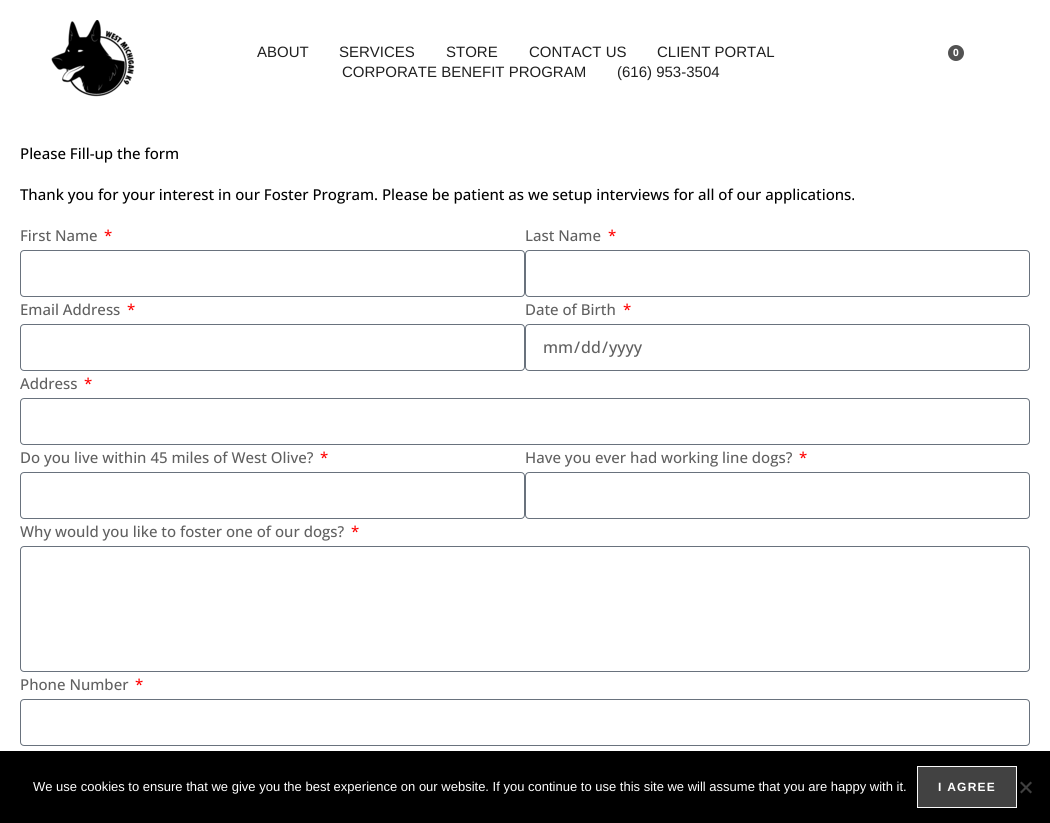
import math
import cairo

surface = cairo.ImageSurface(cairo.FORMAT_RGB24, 1050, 823)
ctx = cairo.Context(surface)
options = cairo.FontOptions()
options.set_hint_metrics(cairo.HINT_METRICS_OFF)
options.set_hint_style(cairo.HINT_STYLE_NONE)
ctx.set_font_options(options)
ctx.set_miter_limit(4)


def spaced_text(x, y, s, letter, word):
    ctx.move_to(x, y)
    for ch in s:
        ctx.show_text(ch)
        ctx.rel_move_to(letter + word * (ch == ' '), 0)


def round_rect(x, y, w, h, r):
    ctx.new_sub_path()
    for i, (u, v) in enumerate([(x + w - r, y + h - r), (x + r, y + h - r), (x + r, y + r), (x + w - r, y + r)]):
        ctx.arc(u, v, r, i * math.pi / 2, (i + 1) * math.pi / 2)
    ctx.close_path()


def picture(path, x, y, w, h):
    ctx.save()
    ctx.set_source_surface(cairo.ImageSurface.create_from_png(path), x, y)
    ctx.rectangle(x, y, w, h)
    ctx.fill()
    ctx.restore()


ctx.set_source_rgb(1, 1, 1)
ctx.paint()
picture("img1.png", 51, 20, 84, 77)
ctx.select_font_face("Liberation Sans")
ctx.set_font_size(15)
ctx.set_source_rgb(0.122, 0.122, 0.122)
ctx.move_to(257, 57)
ctx.show_text("ABOUT")
ctx.move_to(339, 57)
ctx.show_text("SERVICES")
ctx.move_to(446, 57)
ctx.show_text("STORE")
ctx.move_to(529, 57)
ctx.show_text("CONTACT US")
ctx.move_to(657, 57)
ctx.show_text("CLIENT PORTAL")
ctx.move_to(342, 77)
ctx.show_text("CORPORATE BENEFIT PROGRAM")
ctx.move_to(617, 77)
ctx.show_text("(616) 953-3504")
ctx.set_source_rgb(0.322, 0.322, 0.322)
ctx.new_path()
ctx.arc(956, 53, 8, 0, 2 * math.pi)
ctx.fill()
ctx.select_font_face("Open Sans", cairo.FONT_SLANT_NORMAL, cairo.FONT_WEIGHT_BOLD)
ctx.set_font_size(10)
ctx.set_source_rgb(1, 1, 1)
ctx.move_to(953, 56)
ctx.show_text("0")
ctx.select_font_face("Open Sans Medium")
ctx.set_font_size(15)
ctx.set_source_rgb(0, 0, 0)
ctx.move_to(20, 159)
ctx.show_text("Please Fill-up the form")
ctx.move_to(20, 200)
ctx.show_text("Thank you for your interest in our Foster Program. Please be patient as we setup interviews for all of our applications.")
ctx.set_source_rgb(0.376, 0.376, 0.376)
ctx.move_to(20, 241)
ctx.show_text("First Name")
ctx.set_source_rgb(1, 0, 0)
ctx.move_to(104, 241)
ctx.show_text("*")
round_rect(20.5, 250.5, 504, 46, 3.5)
ctx.set_source_rgb(0.412, 0.447, 0.49)
ctx.set_line_width(1)
ctx.stroke()
ctx.set_source_rgb(0.376, 0.376, 0.376)
ctx.move_to(525, 241)
ctx.show_text("Last Name")
ctx.set_source_rgb(1, 0, 0)
ctx.move_to(608, 241)
ctx.show_text("*")
round_rect(525.5, 250.5, 504, 46, 3.5)
ctx.set_source_rgb(0.412, 0.447, 0.49)
ctx.stroke()
ctx.set_source_rgb(0.376, 0.376, 0.376)
ctx.move_to(20, 315)
ctx.show_text("Email Address")
ctx.set_source_rgb(1, 0, 0)
ctx.move_to(127, 315)
ctx.show_text("*")
round_rect(20.5, 324.5, 504, 46, 3.5)
ctx.set_source_rgb(0.412, 0.447, 0.49)
ctx.stroke()
ctx.set_source_rgb(0.376, 0.376, 0.376)
ctx.move_to(525, 315)
ctx.show_text("Date of Birth")
ctx.set_source_rgb(1, 0, 0)
ctx.move_to(623, 315)
ctx.show_text("*")
round_rect(525.5, 324.5, 504, 46, 3.5)
ctx.set_source_rgb(0.412, 0.447, 0.49)
ctx.stroke()
ctx.set_font_size(16)
ctx.set_source_rgb(0.376, 0.376, 0.376)
ctx.move_to(543, 353)
ctx.show_text("mm")
ctx.move_to(574, 353)
ctx.show_text("/")
ctx.move_to(581, 353)
ctx.show_text("dd")
ctx.move_to(602, 353)
ctx.show_text("/")
ctx.move_to(609, 353)
ctx.show_text("yyyy")
ctx.set_font_size(15)
ctx.move_to(20, 389)
ctx.show_text("Address")
ctx.set_source_rgb(1, 0, 0)
ctx.move_to(84, 389)
ctx.show_text("*")
round_rect(20.5, 398.5, 1009, 46, 3.5)
ctx.set_source_rgb(0.412, 0.447, 0.49)
ctx.stroke()
ctx.set_source_rgb(0.376, 0.376, 0.376)
ctx.move_to(20, 463)
ctx.show_text("Do you live within 45 miles of West Olive?")
ctx.set_source_rgb(1, 0, 0)
ctx.move_to(320, 463)
ctx.show_text("*")
round_rect(20.5, 472.5, 504, 46, 3.5)
ctx.set_source_rgb(0.412, 0.447, 0.49)
ctx.stroke()
ctx.set_source_rgb(0.376, 0.376, 0.376)
ctx.move_to(525, 463)
ctx.show_text("Have you ever had working line dogs?")
ctx.set_source_rgb(1, 0, 0)
ctx.move_to(799, 463)
ctx.show_text("*")
round_rect(525.5, 472.5, 504, 46, 3.5)
ctx.set_source_rgb(0.412, 0.447, 0.49)
ctx.stroke()
ctx.set_source_rgb(0.376, 0.376, 0.376)
ctx.move_to(20, 537)
ctx.show_text("Why would you like to foster one of our dogs?")
ctx.set_source_rgb(1, 0, 0)
ctx.move_to(351, 537)
ctx.show_text("*")
round_rect(20.5, 546.5, 1009, 125, 3.5)
ctx.set_source_rgb(0.412, 0.447, 0.49)
ctx.stroke()
ctx.set_source_rgb(0.376, 0.376, 0.376)
ctx.move_to(20, 690)
ctx.show_text("Phone Number")
ctx.set_source_rgb(1, 0, 0)
ctx.move_to(135, 690)
ctx.show_text("*")
round_rect(20.5, 699.5, 1009, 46, 3.5)
ctx.set_source_rgb(0.412, 0.447, 0.49)
ctx.stroke()
ctx.set_source_rgb(0, 0, 0)
ctx.rectangle(0, 751, 1050, 72)
ctx.fill()
ctx.select_font_face("Liberation Sans")
ctx.set_font_size(13)
ctx.set_source_rgb(1, 1, 1)
ctx.move_to(33, 791)
ctx.show_text("We use cookies to ensure that we give you the best experience on our website. If you continue to use this site we will assume that you are happy with it.")
ctx.set_source_rgb(0.259, 0.259, 0.259)
ctx.rectangle(917.5, 766.5, 99, 41)
ctx.fill_preserve()
ctx.set_source_rgb(0.98, 0.98, 0.98)
ctx.stroke()
ctx.select_font_face("Liberation Sans", cairo.FONT_SLANT_NORMAL, cairo.FONT_WEIGHT_BOLD)
ctx.set_font_size(12)
ctx.set_source_rgb(1, 1, 1)
spaced_text(938, 791, "I AGREE", 1.25, 0)
ctx.set_source_rgb(0.251, 0.251, 0.251)
ctx.new_path()
ctx.move_to(1030.5, 781.5)
ctx.line_to(1032, 783)
ctx.line_to(1021.5, 793.5)
ctx.line_to(1020, 792)
ctx.close_path()
ctx.fill()
ctx.new_path()
ctx.move_to(1020, 783)
ctx.line_to(1021.5, 781.5)
ctx.line_to(1032, 792)
ctx.line_to(1030.5, 793.5)
ctx.close_path()
ctx.fill()
surface.write_to_png("page.png")
